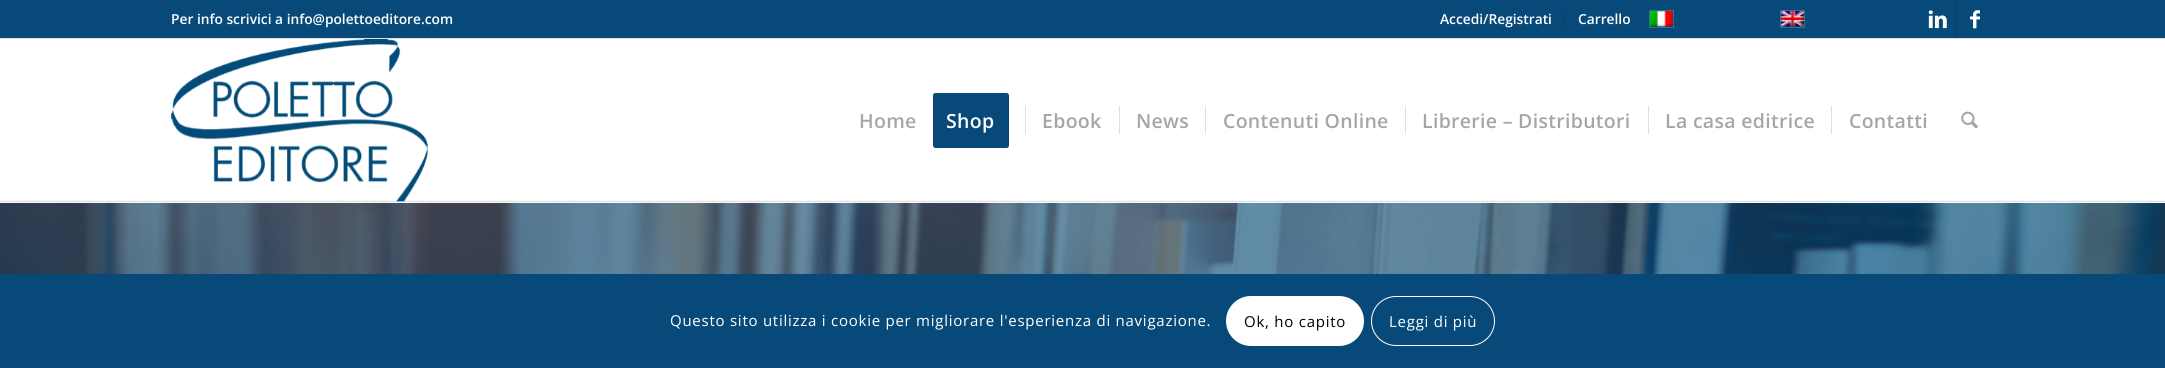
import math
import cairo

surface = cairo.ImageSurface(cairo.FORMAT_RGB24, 2165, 368)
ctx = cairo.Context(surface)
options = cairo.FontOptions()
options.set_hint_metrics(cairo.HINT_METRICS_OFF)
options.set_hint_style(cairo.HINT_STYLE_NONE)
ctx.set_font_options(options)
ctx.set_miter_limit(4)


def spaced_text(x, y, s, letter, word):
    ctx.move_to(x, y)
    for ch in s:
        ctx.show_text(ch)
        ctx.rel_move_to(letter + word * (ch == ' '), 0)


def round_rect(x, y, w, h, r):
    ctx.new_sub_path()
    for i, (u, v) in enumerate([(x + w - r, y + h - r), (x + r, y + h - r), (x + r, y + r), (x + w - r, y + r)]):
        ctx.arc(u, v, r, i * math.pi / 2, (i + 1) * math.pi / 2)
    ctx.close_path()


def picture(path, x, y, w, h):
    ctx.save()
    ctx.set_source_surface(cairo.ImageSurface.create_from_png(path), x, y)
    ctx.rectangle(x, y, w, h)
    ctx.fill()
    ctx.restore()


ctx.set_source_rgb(1, 1, 1)
ctx.paint()
ctx.set_source_rgb(0.031, 0.29, 0.475)
ctx.rectangle(0, 0, 2165, 38)
ctx.fill()
ctx.set_source_rgb(0.882, 0.882, 0.882)
ctx.rectangle(0, 38, 2165, 1)
ctx.fill()
ctx.select_font_face("Open Sans SemiBold")
ctx.set_font_size(13.75)
ctx.set_source_rgb(1, 1, 1)
ctx.move_to(171, 24)
ctx.show_text("Per info scrivici a info@polettoeditore.com")
ctx.set_source_rgb(0.027, 0.243, 0.388)
ctx.rectangle(1564, 13, 1, 12)
ctx.fill()
ctx.set_source_rgb(1, 1, 1)
ctx.move_to(1440, 24)
ctx.show_text("Accedi/Registrati")
ctx.move_to(1578, 24)
ctx.show_text("Carrello")
ctx.rectangle(1649.5, 10.5, 24, 17)
ctx.set_source_rgb(0.224, 0.431, 0.58)
ctx.set_line_width(1)
ctx.stroke()
picture("img1.png", 1649, 11, 24, 16)
ctx.rectangle(1780.5, 10.5, 24, 17)
ctx.stroke()
picture("img2.png", 1780, 11, 24, 16)
ctx.set_source_rgb(0.027, 0.243, 0.388)
ctx.rectangle(1955, 0, 1, 38)
ctx.fill()
picture("img3.png", 1928, 10, 19, 19)
picture("img4.png", 1970, 10, 10, 19)
picture("img7.png", 0, 200, 2165, 74)
ctx.set_source_rgba(1, 1, 1, 0.95)
ctx.rectangle(0, 200, 2165, 3)
ctx.fill()
ctx.set_source_rgb(0.882, 0.882, 0.882)
ctx.rectangle(0, 201, 2165, 1)
ctx.fill()
picture("img5.png", 171, 39, 257, 163)
ctx.set_font_size(19.5)
ctx.set_source_rgb(0.651, 0.651, 0.651)
spaced_text(859, 128, "Home", 0.3, 0)
ctx.set_source_rgb(0.031, 0.29, 0.475)
round_rect(934.5, 94.5, 73, 52, 1)
ctx.fill_preserve()
ctx.set_line_width(3)
ctx.stroke()
ctx.set_source_rgb(1, 1, 1)
spaced_text(946, 128, "Shop", 0.3, 0)
ctx.set_source_rgb(0.651, 0.651, 0.651)
spaced_text(1042, 128, "Ebook", 0.3, 0)
ctx.set_source_rgb(0.882, 0.882, 0.882)
ctx.rectangle(1025, 106, 1, 28)
ctx.fill()
ctx.set_source_rgb(0.651, 0.651, 0.651)
spaced_text(1136, 128, "News", 0.3, 0)
ctx.set_source_rgb(0.882, 0.882, 0.882)
ctx.rectangle(1119, 106, 1, 28)
ctx.fill()
ctx.set_source_rgb(0.651, 0.651, 0.651)
spaced_text(1223, 128, "Contenuti Online", 0.3, 0)
ctx.set_source_rgb(0.882, 0.882, 0.882)
ctx.rectangle(1205, 106, 1, 28)
ctx.fill()
ctx.set_source_rgb(0.651, 0.651, 0.651)
spaced_text(1422, 128, "Librerie – Distributori", 0.3, 0)
ctx.set_source_rgb(0.882, 0.882, 0.882)
ctx.rectangle(1405, 106, 1, 28)
ctx.fill()
ctx.set_source_rgb(0.651, 0.651, 0.651)
spaced_text(1665, 128, "La casa editrice", 0.3, 0)
ctx.set_source_rgb(0.882, 0.882, 0.882)
ctx.rectangle(1648, 106, 1, 28)
ctx.fill()
ctx.set_source_rgb(0.651, 0.651, 0.651)
spaced_text(1849, 128, "Contatti", 0.3, 0)
ctx.set_source_rgb(0.882, 0.882, 0.882)
ctx.rectangle(1831, 106, 1, 28)
ctx.fill()
picture("img6.png", 1961, 111, 17, 18)
ctx.set_source_rgb(0.031, 0.29, 0.475)
ctx.rectangle(0, 274, 2165, 94)
ctx.fill()
ctx.select_font_face("Open Sans")
ctx.set_font_size(15)
ctx.set_source_rgb(1, 1, 1)
spaced_text(670, 326, "Questo sito utilizza i cookie per migliorare l'esperienza di navigazione.", 0.75, 0)
round_rect(1226, 296, 138, 50, 25)
ctx.fill()
ctx.set_source_rgb(0, 0, 0)
spaced_text(1244, 327, "Ok, ho capito", 0.75, 0)
round_rect(1371.5, 296.5, 123, 49, 24.5)
ctx.set_source_rgb(1, 1, 1)
ctx.set_line_width(1)
ctx.stroke()
spaced_text(1389, 327, "Leggi di più", 0.75, 0)
surface.write_to_png("page.png")
